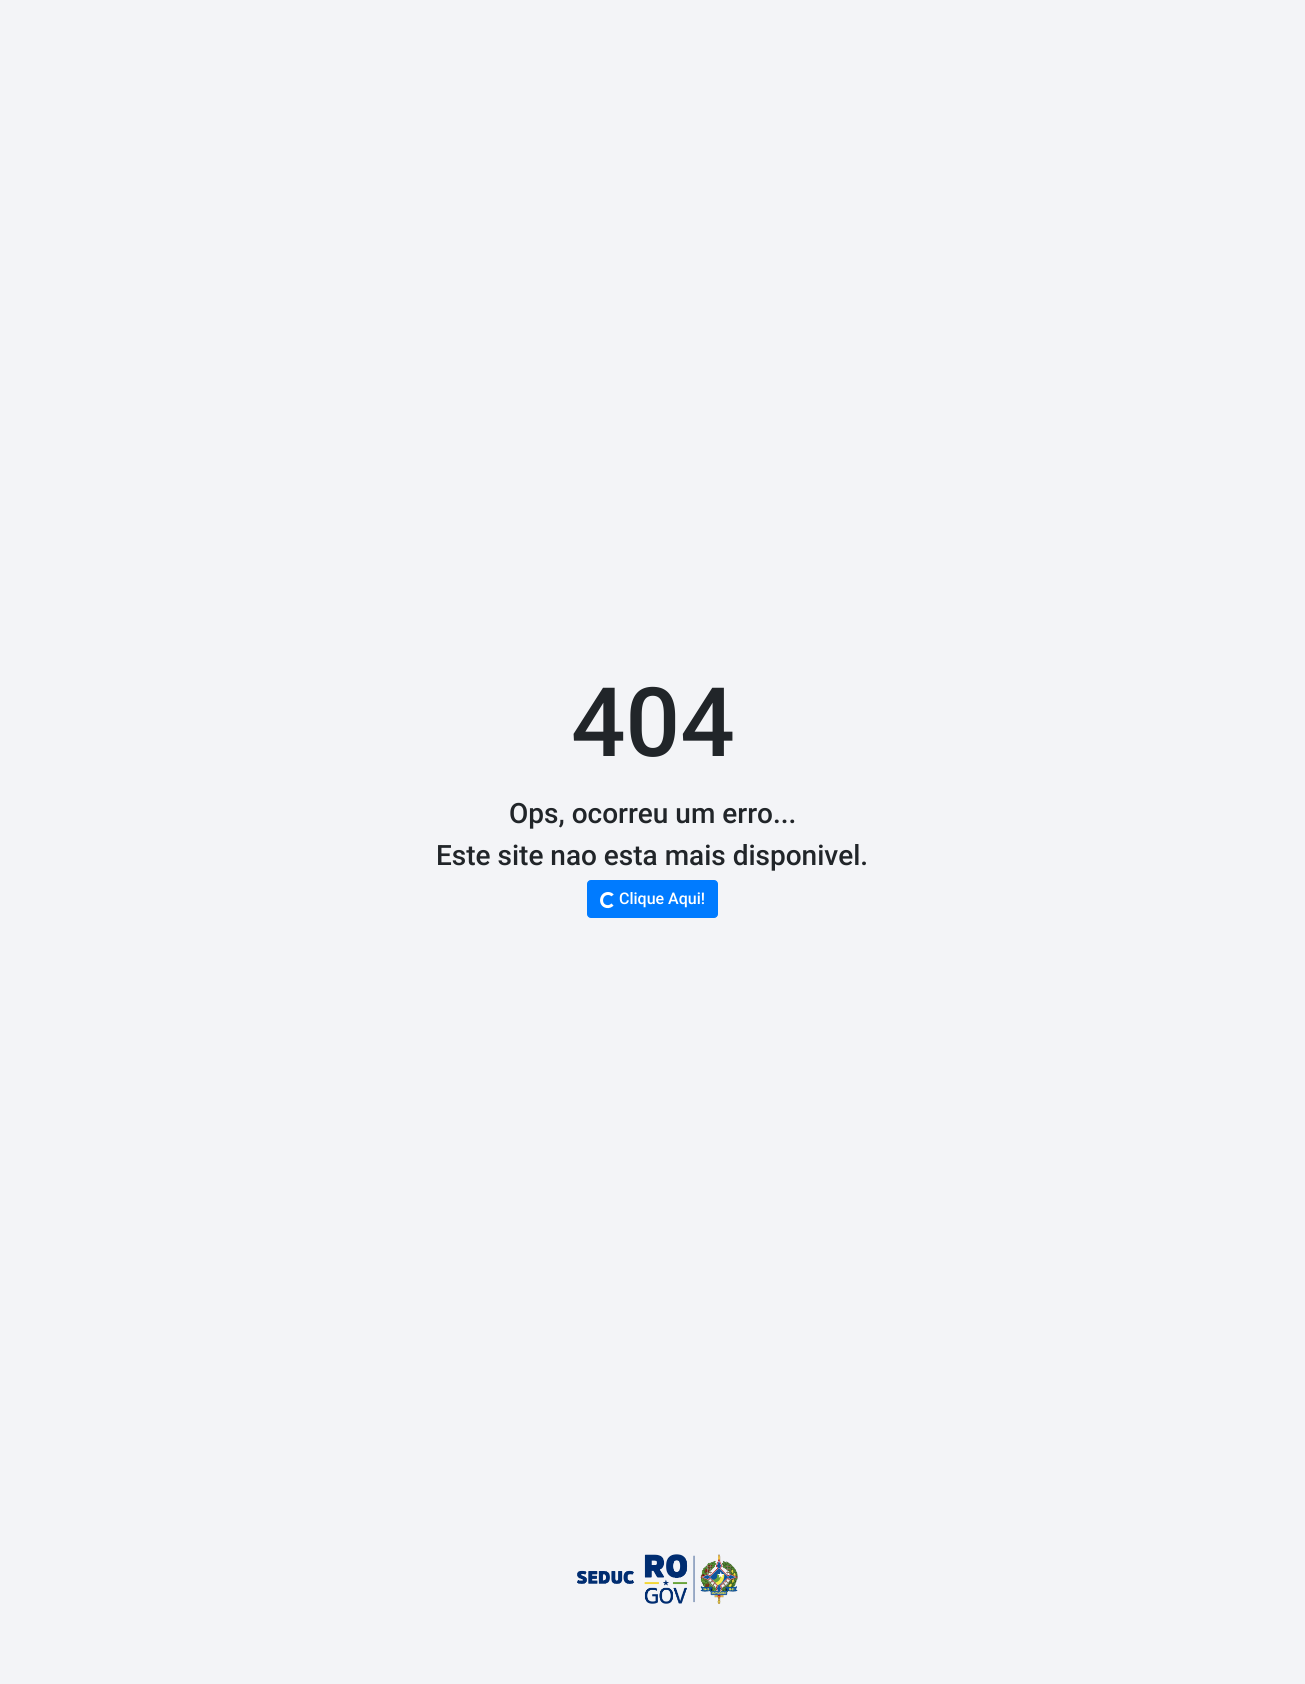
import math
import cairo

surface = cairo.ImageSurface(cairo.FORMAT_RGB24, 1305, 1684)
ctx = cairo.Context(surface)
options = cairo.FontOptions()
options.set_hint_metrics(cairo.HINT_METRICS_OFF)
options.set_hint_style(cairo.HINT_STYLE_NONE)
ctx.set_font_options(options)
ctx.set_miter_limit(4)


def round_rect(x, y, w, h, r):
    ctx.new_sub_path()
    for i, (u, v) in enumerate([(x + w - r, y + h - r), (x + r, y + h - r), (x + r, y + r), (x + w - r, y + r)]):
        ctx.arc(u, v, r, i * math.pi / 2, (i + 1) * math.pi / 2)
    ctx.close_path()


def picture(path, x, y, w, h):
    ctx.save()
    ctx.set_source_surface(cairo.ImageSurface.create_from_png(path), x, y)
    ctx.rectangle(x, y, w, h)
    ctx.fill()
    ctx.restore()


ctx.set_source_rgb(0.953, 0.957, 0.965)
ctx.paint()
ctx.select_font_face("Roboto Medium")
ctx.set_font_size(96)
ctx.set_source_rgb(0.129, 0.145, 0.161)
ctx.move_to(571, 756)
ctx.show_text("404")
ctx.set_font_size(28)
ctx.move_to(509, 823)
ctx.show_text("Ops, ocorreu um erro...")
ctx.move_to(436, 865)
ctx.show_text("Este site nao esta mais disponivel.")
ctx.set_source_rgb(0, 0.482, 1)
round_rect(587.5, 880.5, 130, 37, 3.5)
ctx.fill_preserve()
ctx.set_line_width(1)
ctx.stroke()
ctx.new_path()
ctx.move_to(612.5, 904.5)
ctx.curve_to(611, 906, 609, 907, 606.5, 906.5)
ctx.curve_to(599, 905, 600.5, 893.5, 608, 893.5)
ctx.curve_to(609.5, 893.5, 611.5, 894, 612.5, 895.5)
ctx.set_source_rgb(1, 1, 1)
ctx.set_line_width(3)
ctx.stroke()
ctx.set_font_size(16)
ctx.move_to(619, 904)
ctx.show_text("Clique Aqui!")
picture("img1.png", 577, 1554, 161, 50)
surface.write_to_png("page.png")
